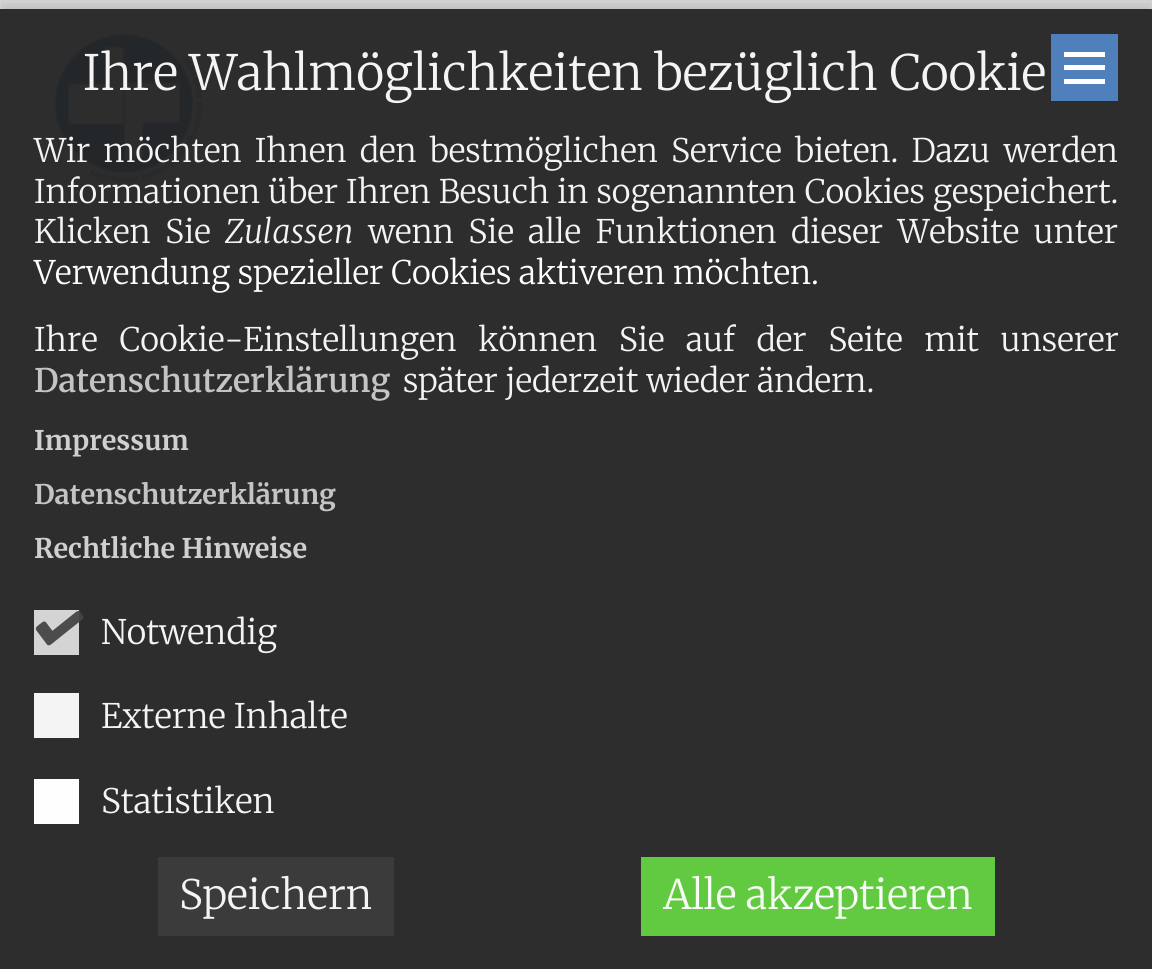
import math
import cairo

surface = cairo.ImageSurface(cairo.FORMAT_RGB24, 1152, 969)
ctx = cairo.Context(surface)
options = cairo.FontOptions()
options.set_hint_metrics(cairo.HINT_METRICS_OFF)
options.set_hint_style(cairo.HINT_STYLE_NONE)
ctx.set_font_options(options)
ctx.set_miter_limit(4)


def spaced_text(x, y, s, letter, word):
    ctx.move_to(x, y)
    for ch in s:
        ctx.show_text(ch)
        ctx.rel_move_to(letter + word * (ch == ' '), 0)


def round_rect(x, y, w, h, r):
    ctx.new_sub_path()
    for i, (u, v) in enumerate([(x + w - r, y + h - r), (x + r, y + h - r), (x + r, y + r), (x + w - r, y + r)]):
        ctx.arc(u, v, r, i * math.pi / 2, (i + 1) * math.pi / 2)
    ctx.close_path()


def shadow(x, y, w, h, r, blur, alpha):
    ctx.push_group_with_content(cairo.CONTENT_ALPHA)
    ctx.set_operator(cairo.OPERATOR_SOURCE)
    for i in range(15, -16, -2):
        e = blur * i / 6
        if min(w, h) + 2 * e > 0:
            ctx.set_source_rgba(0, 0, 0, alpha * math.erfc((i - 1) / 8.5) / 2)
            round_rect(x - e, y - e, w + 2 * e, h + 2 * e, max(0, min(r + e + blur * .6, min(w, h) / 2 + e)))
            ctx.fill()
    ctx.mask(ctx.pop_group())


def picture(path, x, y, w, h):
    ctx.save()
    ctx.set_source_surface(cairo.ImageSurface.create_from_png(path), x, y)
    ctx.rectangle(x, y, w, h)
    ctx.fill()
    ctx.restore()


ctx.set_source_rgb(1, 1, 1)
ctx.paint()
ctx.set_source_rgb(0.176, 0.176, 0.176)
ctx.rectangle(0, 9, 1152, 960)
ctx.fill()
picture("img1.png", 33, 13, 181, 181)
ctx.save()
ctx.rectangle(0, 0, 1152, 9)
ctx.clip()
ctx.set_source_rgb(0.051, 0.051, 0.051)
shadow(-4, -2, 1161, 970, 0, 11, 0.3)
ctx.restore()
ctx.set_source_rgb(0.31, 0.502, 0.737)
ctx.rectangle(1051, 34, 67, 67)
ctx.fill()
ctx.set_source_rgb(1, 1, 1)
ctx.rectangle(1064, 65, 41, 5)
ctx.fill()
ctx.rectangle(1064, 52, 41, 5)
ctx.fill()
ctx.rectangle(1064, 79, 41, 5)
ctx.fill()
ctx.select_font_face("Merriweather Light")
ctx.set_font_size(48.6)
ctx.set_source_rgb(0.957, 0.957, 0.957)
ctx.move_to(83, 90)
ctx.show_text("Ihre Wahlmöglichkeiten bezüglich Cookie")
ctx.select_font_face("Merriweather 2 Light")
ctx.set_font_size(32.4)
spaced_text(34, 162, "Wir möchten Ihnen den bestmöglichen Service bieten. Dazu werden", 0, 5.5)
spaced_text(34, 203, "Informationen über Ihren Besuch in sogenannten Cookies gespeichert.", 0, 0.25)
spaced_text(34, 243, "Klicken Sie", 0, 6.75)
ctx.select_font_face("Merriweather Light", cairo.FONT_SLANT_ITALIC)
ctx.move_to(225, 243)
ctx.show_text("Zulassen")
ctx.select_font_face("Merriweather 2 Light")
spaced_text(368, 243, "wenn Sie alle Funktionen dieser Website unter", 0, 6.75)
ctx.set_source_rgb(1, 1, 1)
ctx.move_to(34, 284)
ctx.show_text("Verwendung spezieller Cookies aktiveren möchten.")
ctx.set_source_rgb(0.957, 0.957, 0.957)
spaced_text(34, 351, "Ihre Cookie-Einstellungen können Sie auf der Seite mit unserer", 0, 14)
ctx.select_font_face("Merriweather SemiBold")
ctx.set_source_rgb(0.769, 0.769, 0.769)
ctx.move_to(34, 392)
ctx.show_text("Datenschutzerklärung")
ctx.select_font_face("Merriweather 2 Light")
ctx.set_source_rgb(0.957, 0.957, 0.957)
ctx.move_to(403, 392)
ctx.show_text("später jederzeit wieder ändern.")
ctx.select_font_face("Merriweather", cairo.FONT_SLANT_NORMAL, cairo.FONT_WEIGHT_BOLD)
ctx.set_font_size(27)
ctx.set_source_rgb(0.812, 0.812, 0.812)
ctx.move_to(34, 450)
ctx.show_text("Impressum")
ctx.set_source_rgb(0.769, 0.769, 0.769)
ctx.move_to(34, 504)
ctx.show_text("Datenschutzerklärung")
ctx.set_source_rgb(0.812, 0.812, 0.812)
ctx.move_to(34, 558)
ctx.show_text("Rechtliche Hinweise")
ctx.set_source_rgba(0.867, 0.867, 0.867, 0.95)
ctx.rectangle(34, 610, 45, 45)
ctx.fill()
picture("img2.png", 35, 611, 49, 35)
ctx.select_font_face("Merriweather 2 Light")
ctx.set_font_size(33.75)
ctx.set_source_rgb(0.957, 0.957, 0.957)
ctx.move_to(101, 644)
ctx.show_text("Notwendig")
ctx.rectangle(34, 693, 45, 45)
ctx.fill()
ctx.move_to(101, 728)
ctx.show_text("Externe Inhalte")
ctx.set_source_rgb(0.996, 0.996, 0.996)
ctx.rectangle(34, 779, 45, 45)
ctx.fill()
ctx.set_source_rgb(0.957, 0.957, 0.957)
ctx.move_to(101, 813)
ctx.show_text("Statistiken")
ctx.set_source_rgba(0.235, 0.235, 0.235, 0.95)
ctx.rectangle(158, 857, 236, 79)
ctx.fill()
ctx.set_font_size(40.5)
ctx.set_source_rgb(0.957, 0.957, 0.957)
ctx.move_to(179, 909)
ctx.show_text("Speichern")
ctx.set_source_rgba(0.392, 0.824, 0.255, 0.95)
ctx.rectangle(641, 857, 354, 79)
ctx.fill()
ctx.set_source_rgb(0.969, 0.988, 0.961)
ctx.move_to(663, 909)
ctx.show_text("Alle akzeptieren")
surface.write_to_png("page.png")
